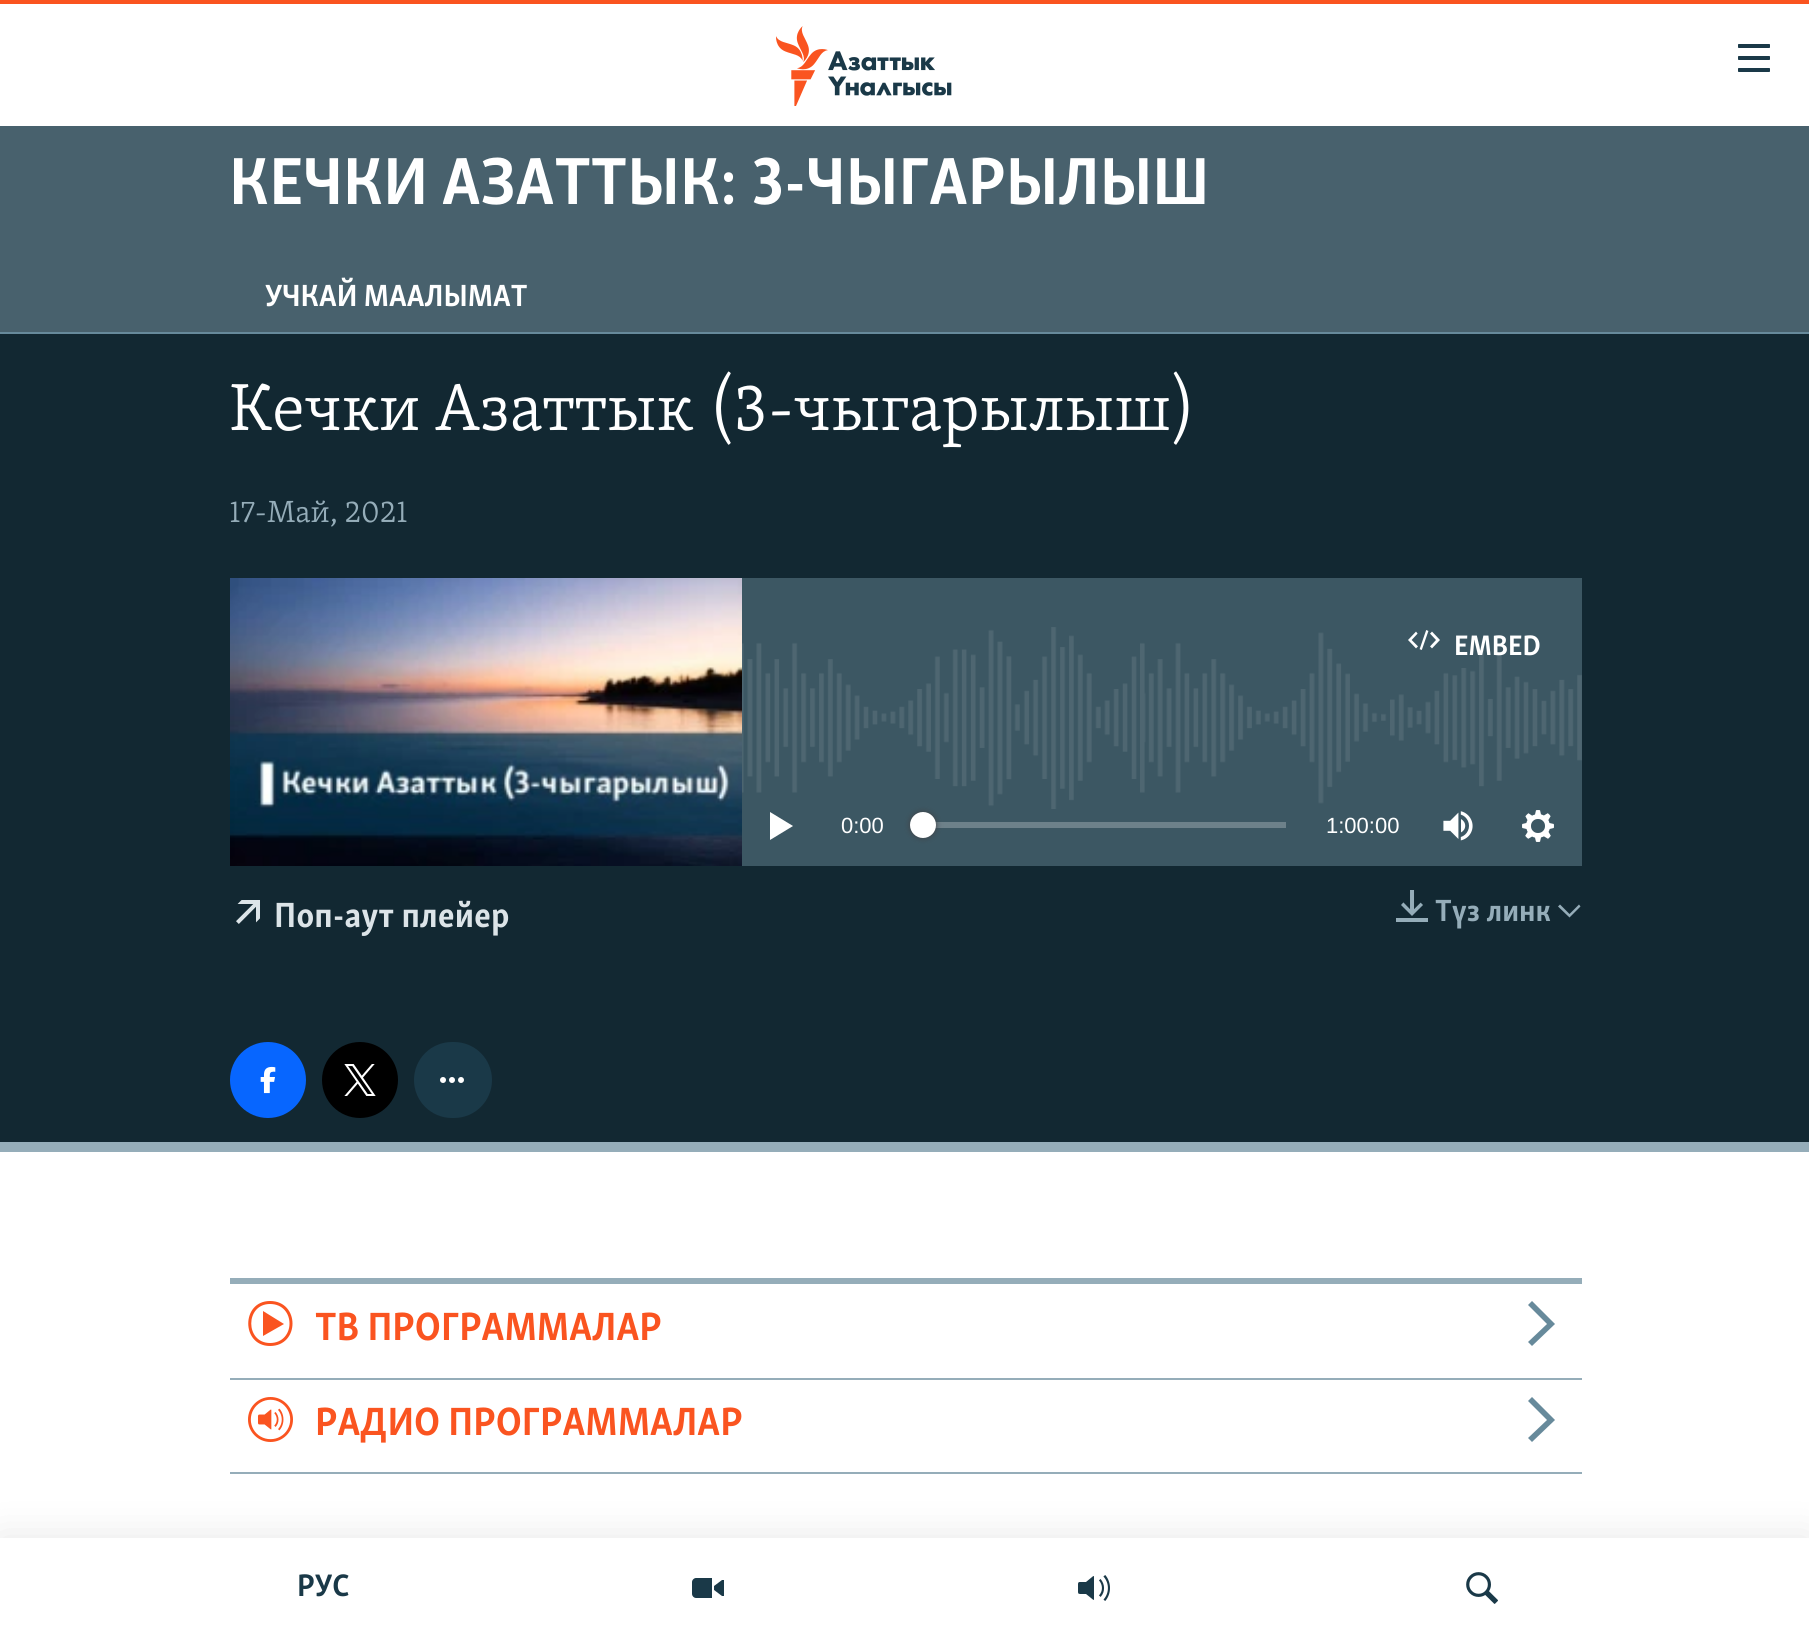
import math
import cairo

surface = cairo.ImageSurface(cairo.FORMAT_RGB24, 1809, 1638)
ctx = cairo.Context(surface)
options = cairo.FontOptions()
options.set_hint_metrics(cairo.HINT_METRICS_OFF)
options.set_hint_style(cairo.HINT_STYLE_NONE)
ctx.set_font_options(options)
ctx.set_miter_limit(4)


def round_rect(x, y, w, h, r):
    ctx.new_sub_path()
    for i, (u, v) in enumerate([(x + w - r, y + h - r), (x + r, y + h - r), (x + r, y + r), (x + w - r, y + r)]):
        ctx.arc(u, v, r, i * math.pi / 2, (i + 1) * math.pi / 2)
    ctx.close_path()


def shadow(x, y, w, h, r, blur, alpha):
    ctx.push_group_with_content(cairo.CONTENT_ALPHA)
    ctx.set_operator(cairo.OPERATOR_SOURCE)
    for i in range(15, -16, -2):
        e = blur * i / 6
        if min(w, h) + 2 * e > 0:
            ctx.set_source_rgba(0, 0, 0, alpha * math.erfc((i - 1) / 8.5) / 2)
            round_rect(x - e, y - e, w + 2 * e, h + 2 * e, max(0, min(r + e + blur * .6, min(w, h) / 2 + e)))
            ctx.fill()
    ctx.mask(ctx.pop_group())


def picture(path, x, y, w, h):
    ctx.save()
    ctx.set_source_surface(cairo.ImageSurface.create_from_png(path), x, y)
    ctx.rectangle(x, y, w, h)
    ctx.fill()
    ctx.restore()


ctx.set_source_rgb(1, 1, 1)
ctx.paint()
ctx.set_source_rgb(0.282, 0.38, 0.427)
ctx.rectangle(0, 126, 1809, 206)
ctx.fill()
ctx.select_font_face("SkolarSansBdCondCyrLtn", cairo.FONT_SLANT_NORMAL, cairo.FONT_WEIGHT_BOLD)
ctx.set_font_size(68.4)
ctx.set_source_rgb(1, 1, 1)
ctx.move_to(229, 204)
ctx.show_text("КЕЧКИ АЗАТТЫК: 3-ЧЫГАРЫЛЫШ")
ctx.set_font_size(31.5)
ctx.move_to(265, 306)
ctx.show_text("УЧКАЙ МААЛЫМАТ")
ctx.set_source_rgb(0.071, 0.157, 0.196)
ctx.rectangle(0, 334, 1809, 808)
ctx.fill()
ctx.set_source_rgb(0.404, 0.541, 0.608)
ctx.rectangle(0, 332, 1809, 2)
ctx.fill()
ctx.set_source_rgb(0.584, 0.678, 0.725)
ctx.rectangle(0, 1142, 1809, 10)
ctx.fill()
ctx.select_font_face("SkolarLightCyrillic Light")
ctx.set_font_size(68.4)
ctx.set_source_rgb(1, 1, 1)
ctx.move_to(229, 430)
ctx.show_text("Кечки Азаттык (3-чыгарылыш)")
ctx.set_font_size(31.5)
ctx.set_source_rgb(0.584, 0.678, 0.725)
ctx.move_to(229, 522)
ctx.show_text("17-Май, 2021")
ctx.set_source_rgb(0.235, 0.341, 0.388)
ctx.rectangle(742, 578, 840, 288)
ctx.fill()
picture("img1.png", 742, 627, 840, 182)
picture("img2.png", 230, 578, 512, 288)
picture("img3.png", 1408, 630, 32, 20)
ctx.select_font_face("SkolarSansBdCondCyrLtn", cairo.FONT_SLANT_NORMAL, cairo.FONT_WEIGHT_BOLD)
ctx.set_font_size(29)
ctx.set_source_rgb(1, 1, 1)
ctx.move_to(1454, 655)
ctx.show_text("EMBED")
ctx.new_path()
ctx.move_to(770, 840)
ctx.line_to(793, 826)
ctx.line_to(770, 812)
ctx.close_path()
ctx.fill()
ctx.select_font_face("Liberation Sans")
ctx.set_font_size(22)
ctx.move_to(841, 833)
ctx.show_text("0:00")
ctx.set_source_rgb(0.427, 0.506, 0.541)
ctx.rectangle(935, 822, 351, 6)
ctx.fill()
ctx.set_source_rgb(0.255, 0.255, 0.267)
shadow(910, 812, 26, 26, 13, 3, 1)
ctx.set_source_rgb(1, 1, 1)
ctx.arc(923, 825, 13, 0, 2 * math.pi)
ctx.fill()
ctx.move_to(1326, 833)
ctx.show_text("1:00:00")
picture("img4.png", 1443, 811, 30, 30)
picture("img5.png", 1522, 810, 32, 32)
picture("img6.png", 236, 900, 24, 24)
ctx.select_font_face("SkolarSansBdCondCyrLtn", cairo.FONT_SLANT_NORMAL, cairo.FONT_WEIGHT_BOLD)
ctx.set_font_size(36)
ctx.set_source_rgb(0.863, 0.894, 0.91)
ctx.move_to(274, 927)
ctx.show_text("Поп-аут плейер")
picture("img7.png", 1396, 890, 32, 32)
ctx.set_font_size(31.5)
ctx.set_source_rgb(0.584, 0.678, 0.725)
ctx.move_to(1435, 921)
ctx.show_text("Түз линк")
ctx.new_path()
ctx.move_to(1558, 906.5)
ctx.line_to(1569.5, 917.5)
ctx.line_to(1580.5, 906.5)
ctx.line_to(1579, 904.5)
ctx.line_to(1569.5, 914)
ctx.line_to(1560, 904.5)
ctx.close_path()
ctx.fill()
ctx.set_source_rgb(0.031, 0.4, 1)
ctx.arc(268, 1080, 38, 0, 2 * math.pi)
ctx.fill()
picture("img8.png", 260, 1066, 16, 28)
ctx.set_source_rgb(0, 0, 0)
ctx.arc(360, 1080, 38, 0, 2 * math.pi)
ctx.fill()
picture("img9.png", 344, 1064, 32, 32)
ctx.set_source_rgb(0.102, 0.224, 0.282)
round_rect(414, 1042, 78, 76, 38)
ctx.fill()
picture("img10.png", 440, 1077, 24, 6)
ctx.set_source_rgb(0.584, 0.678, 0.725)
ctx.rectangle(230, 1278, 1352, 6)
ctx.fill()
ctx.rectangle(230, 1378, 1352, 2)
ctx.fill()
ctx.set_source_rgb(0.98, 0.329, 0.125)
ctx.new_path()
ctx.move_to(263, 1336)
ctx.line_to(284, 1324)
ctx.line_to(263, 1311)
ctx.close_path()
ctx.move_to(270, 1304)
ctx.curve_to(296, 1304, 296, 1343, 270, 1343)
ctx.curve_to(245, 1343, 245, 1304, 270, 1304)
ctx.close_path()
ctx.move_to(270, 1301)
ctx.curve_to(241, 1301, 241, 1346, 270, 1346)
ctx.curve_to(300, 1346, 300, 1301, 270, 1301)
ctx.close_path()
ctx.fill()
ctx.set_font_size(40.5)
ctx.move_to(315, 1340)
ctx.show_text("ТВ ПРОГРАММАЛАР")
ctx.set_source_rgb(0.404, 0.541, 0.608)
ctx.new_path()
ctx.move_to(1532, 1346)
ctx.line_to(1555, 1324)
ctx.line_to(1532, 1301)
ctx.line_to(1528, 1305)
ctx.line_to(1547, 1324)
ctx.line_to(1528, 1342)
ctx.close_path()
ctx.fill()
ctx.set_source_rgb(0.584, 0.678, 0.725)
ctx.rectangle(230, 1472, 1352, 2)
ctx.fill()
picture("img11.png", 248, 1397, 45, 45)
ctx.set_source_rgb(0.98, 0.329, 0.125)
ctx.move_to(315, 1435)
ctx.show_text("РАДИО ПРОГРАММАЛАР")
ctx.set_source_rgb(0.404, 0.541, 0.608)
ctx.new_path()
ctx.move_to(1532, 1442)
ctx.line_to(1555, 1420)
ctx.line_to(1532, 1397)
ctx.line_to(1528, 1401)
ctx.line_to(1547, 1420)
ctx.line_to(1528, 1438)
ctx.close_path()
ctx.fill()
ctx.set_source_rgb(0.98, 0.329, 0.125)
ctx.rectangle(0, 0, 1809, 4)
ctx.fill()
picture("img12.png", 776, 26, 176, 80)
picture("img13.png", 1738, 44, 32, 28)
ctx.set_source_rgb(0, 0, 0)
shadow(0, 1538, 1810, 100, 0, 20, 0.1)
ctx.set_source_rgb(1, 1, 1)
ctx.rectangle(0, 1538, 1809, 100)
ctx.fill()
ctx.set_font_size(32)
ctx.set_source_rgb(0.102, 0.224, 0.282)
ctx.move_to(297, 1596)
ctx.show_text("РУС")
picture("img14.png", 692, 1578, 32, 20)
picture("img15.png", 1078, 1575, 32, 26)
picture("img16.png", 1466, 1572, 32, 32)
surface.write_to_png("page.png")
